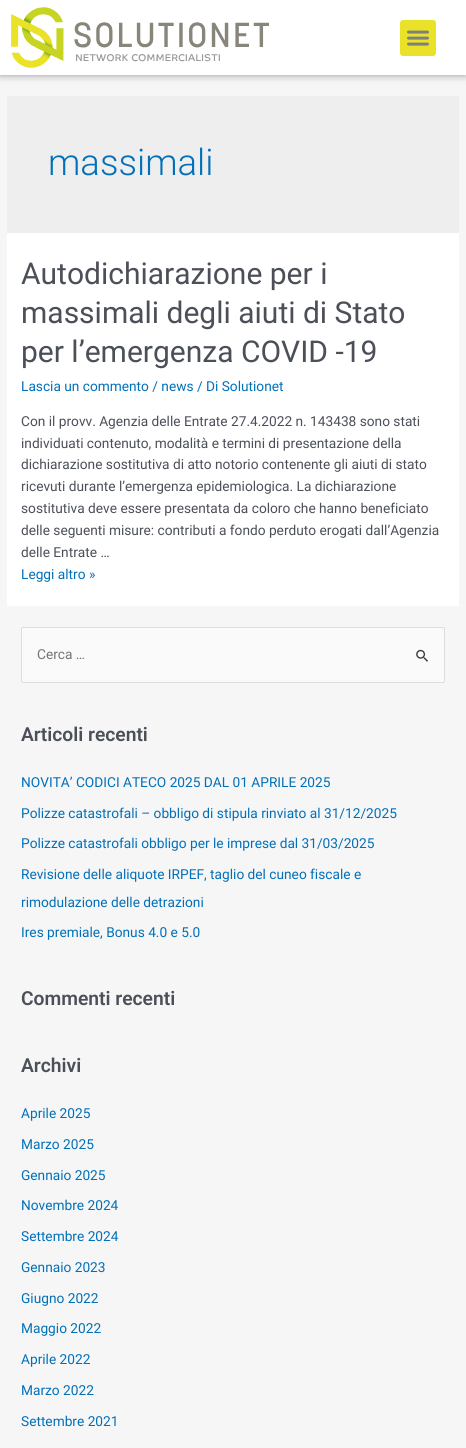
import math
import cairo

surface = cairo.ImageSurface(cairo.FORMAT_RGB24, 466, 1448)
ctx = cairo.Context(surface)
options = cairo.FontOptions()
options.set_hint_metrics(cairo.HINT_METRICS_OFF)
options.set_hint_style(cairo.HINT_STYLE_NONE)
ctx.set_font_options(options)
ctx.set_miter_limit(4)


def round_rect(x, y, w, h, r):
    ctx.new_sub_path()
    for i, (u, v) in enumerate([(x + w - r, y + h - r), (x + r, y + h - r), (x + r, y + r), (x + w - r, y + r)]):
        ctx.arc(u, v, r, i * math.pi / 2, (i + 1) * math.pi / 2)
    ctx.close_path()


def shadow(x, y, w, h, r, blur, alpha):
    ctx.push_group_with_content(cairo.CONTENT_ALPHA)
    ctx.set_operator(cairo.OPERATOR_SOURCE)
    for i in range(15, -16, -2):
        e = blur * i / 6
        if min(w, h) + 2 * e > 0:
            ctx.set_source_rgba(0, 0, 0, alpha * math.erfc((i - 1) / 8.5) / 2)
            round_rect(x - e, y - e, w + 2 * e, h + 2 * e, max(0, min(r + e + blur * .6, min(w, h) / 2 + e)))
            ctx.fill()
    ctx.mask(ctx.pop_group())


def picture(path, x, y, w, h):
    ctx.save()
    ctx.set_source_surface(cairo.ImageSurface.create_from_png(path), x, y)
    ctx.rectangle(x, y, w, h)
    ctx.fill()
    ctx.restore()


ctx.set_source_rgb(0.961, 0.961, 0.961)
ctx.paint()
ctx.set_source_rgb(0, 0, 0)
shadow(0, 0, 466, 75, 0, 4, 0.4)
ctx.set_source_rgb(1, 1, 1)
ctx.rectangle(0, 0, 466, 75)
ctx.fill()
picture("img1.png", 11, 7, 258, 61)
ctx.set_source_rgb(0.914, 0.886, 0.161)
round_rect(400, 20, 36, 36, 3)
ctx.fill()
picture("img2.png", 407, 30, 22, 16)
ctx.set_source_rgb(0.933, 0.933, 0.933)
ctx.rectangle(7, 96, 452, 137)
ctx.fill()
ctx.select_font_face("Roboto Light")
ctx.set_font_size(36.5)
ctx.set_source_rgb(0.004, 0.439, 0.725)
ctx.move_to(48, 175)
ctx.show_text("massimali")
ctx.set_source_rgb(1, 1, 1)
ctx.rectangle(7, 233, 452, 373)
ctx.fill()
ctx.select_font_face("Roboto")
ctx.set_font_size(30)
ctx.set_source_rgb(0.294, 0.31, 0.345)
ctx.move_to(21, 284)
ctx.show_text("Autodichiarazione per i")
ctx.move_to(21, 323)
ctx.show_text("massimali degli aiuti di Stato")
ctx.move_to(21, 362)
ctx.show_text("per l’emergenza COVID -19")
ctx.set_font_size(13.7)
ctx.set_source_rgb(0.004, 0.439, 0.725)
ctx.move_to(21, 391)
ctx.show_text("Lascia un commento / news / Di Solutionet")
ctx.set_source_rgb(0.294, 0.31, 0.345)
ctx.move_to(21, 426)
ctx.show_text("Con il provv. Agenzia delle Entrate 27.4.2022 n. 143438 sono stati")
ctx.move_to(21, 448)
ctx.show_text("individuati contenuto, modalità e termini di presentazione della")
ctx.move_to(21, 469)
ctx.show_text("dichiarazione sostitutiva di atto notorio contenente gli aiuti di stato")
ctx.move_to(21, 491)
ctx.show_text("ricevuti durante l’emergenza epidemiologica. La dichiarazione")
ctx.move_to(21, 513)
ctx.show_text("sostitutiva deve essere presentata da coloro che hanno beneficiato")
ctx.move_to(21, 535)
ctx.show_text("delle seguenti misure: contributi a fondo perduto erogati dall’Agenzia")
ctx.move_to(21, 557)
ctx.show_text("delle Entrate …")
ctx.set_source_rgb(0.004, 0.439, 0.725)
ctx.move_to(21, 579)
ctx.show_text("Leggi altro »")
ctx.set_source_rgb(0.98, 0.98, 0.98)
round_rect(21.5, 627.5, 423, 55, 1.5)
ctx.fill_preserve()
ctx.set_source_rgb(0.867, 0.867, 0.867)
ctx.set_line_width(1)
ctx.stroke()
ctx.set_source_rgb(0.459, 0.459, 0.459)
ctx.move_to(37, 659)
ctx.show_text("Cerca …")
picture("img3.png", 416, 649, 12, 13)
ctx.select_font_face("Roboto SemiBold")
ctx.set_font_size(19.25)
ctx.set_source_rgb(0.294, 0.31, 0.345)
ctx.move_to(21, 741)
ctx.show_text("Articoli recenti")
ctx.select_font_face("Roboto")
ctx.set_font_size(13.7)
ctx.set_source_rgb(0.004, 0.439, 0.725)
ctx.move_to(21, 787)
ctx.show_text("NOVITA’ CODICI ATECO 2025 DAL 01 APRILE 2025")
ctx.move_to(21, 818)
ctx.show_text("Polizze catastrofali – obbligo di stipula rinviato al 31/12/2025")
ctx.move_to(21, 848)
ctx.show_text("Polizze catastrofali obbligo per le imprese dal 31/03/2025")
ctx.move_to(21, 879)
ctx.show_text("Revisione delle aliquote IRPEF, taglio del cuneo fiscale e")
ctx.move_to(21, 907)
ctx.show_text("rimodulazione delle detrazioni")
ctx.move_to(21, 937)
ctx.show_text("Ires premiale, Bonus 4.0 e 5.0")
ctx.select_font_face("Roboto SemiBold")
ctx.set_font_size(19.25)
ctx.set_source_rgb(0.294, 0.31, 0.345)
ctx.move_to(21, 1005)
ctx.show_text("Commenti recenti")
ctx.move_to(21, 1072)
ctx.show_text("Archivi")
ctx.select_font_face("Roboto")
ctx.set_font_size(13.7)
ctx.set_source_rgb(0.004, 0.439, 0.725)
ctx.move_to(21, 1118)
ctx.show_text("Aprile 2025")
ctx.move_to(21, 1149)
ctx.show_text("Marzo 2025")
ctx.move_to(21, 1180)
ctx.show_text("Gennaio 2025")
ctx.move_to(21, 1210)
ctx.show_text("Novembre 2024")
ctx.move_to(21, 1241)
ctx.show_text("Settembre 2024")
ctx.move_to(21, 1272)
ctx.show_text("Gennaio 2023")
ctx.move_to(21, 1303)
ctx.show_text("Giugno 2022")
ctx.move_to(21, 1333)
ctx.show_text("Maggio 2022")
ctx.move_to(21, 1364)
ctx.show_text("Aprile 2022")
ctx.move_to(21, 1395)
ctx.show_text("Marzo 2022")
ctx.move_to(21, 1426)
ctx.show_text("Settembre 2021")
surface.write_to_png("page.png")
